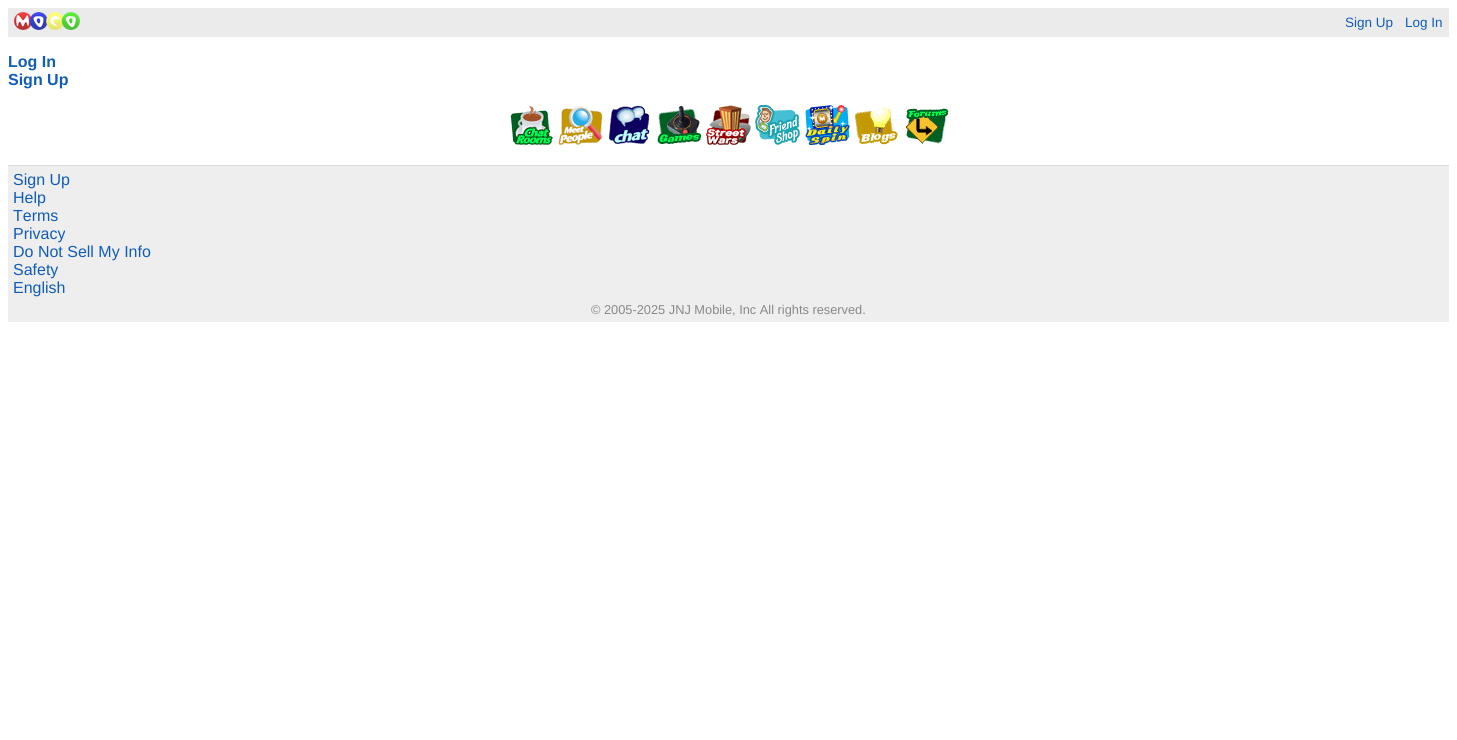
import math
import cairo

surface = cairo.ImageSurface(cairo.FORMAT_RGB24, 1457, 740)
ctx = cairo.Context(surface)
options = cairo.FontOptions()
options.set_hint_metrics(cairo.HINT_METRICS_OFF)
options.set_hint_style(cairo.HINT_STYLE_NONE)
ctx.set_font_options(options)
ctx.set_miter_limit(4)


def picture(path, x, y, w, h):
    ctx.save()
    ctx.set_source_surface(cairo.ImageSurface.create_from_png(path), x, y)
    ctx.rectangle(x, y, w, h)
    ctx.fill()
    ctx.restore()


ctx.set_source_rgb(1, 1, 1)
ctx.paint()
ctx.set_source_rgb(0.918, 0.918, 0.918)
ctx.rectangle(8, 8, 1441, 29)
ctx.fill()
picture("img1.png", 14, 12, 66, 18)
ctx.select_font_face("Liberation Sans")
ctx.set_font_size(13.5)
ctx.set_source_rgb(0.063, 0.361, 0.714)
ctx.move_to(1345, 27)
ctx.show_text("Sign Up")
ctx.move_to(1405, 27)
ctx.show_text("Log In")
ctx.select_font_face("Liberation Sans", cairo.FONT_SLANT_NORMAL, cairo.FONT_WEIGHT_BOLD)
ctx.set_font_size(16)
ctx.move_to(8, 67)
ctx.show_text("Log In")
ctx.move_to(8, 85)
ctx.show_text("Sign Up")
picture("img2.png", 510, 106, 43, 39)
picture("img3.png", 558, 106, 45, 39)
picture("img4.png", 608, 105, 42, 40)
picture("img5.png", 657, 106, 45, 38)
picture("img6.png", 706, 105, 45, 40)
picture("img7.png", 755, 105, 45, 40)
picture("img8.png", 805, 105, 45, 40)
picture("img9.png", 854, 107, 45, 38)
picture("img10.png", 906, 108, 43, 36)
ctx.set_source_rgb(0.933, 0.933, 0.933)
ctx.rectangle(8, 166, 1441, 156)
ctx.fill()
ctx.set_source_rgb(0.867, 0.867, 0.867)
ctx.rectangle(8, 165, 1441, 1)
ctx.fill()
ctx.select_font_face("Liberation Sans")
ctx.set_source_rgb(0.063, 0.361, 0.714)
ctx.move_to(13, 185)
ctx.show_text("Sign Up")
ctx.move_to(13, 203)
ctx.show_text("Help")
ctx.move_to(13, 221)
ctx.show_text("Terms")
ctx.move_to(13, 239)
ctx.show_text("Privacy")
ctx.move_to(13, 257)
ctx.show_text("Do Not Sell My Info")
ctx.move_to(13, 275)
ctx.show_text("Safety")
ctx.move_to(13, 293)
ctx.show_text("English")
ctx.set_font_size(12.8)
ctx.set_source_rgb(0.533, 0.533, 0.533)
ctx.move_to(591, 314)
ctx.show_text("© 2005-2025 JNJ Mobile, Inc All rights reserved.")
surface.write_to_png("page.png")
